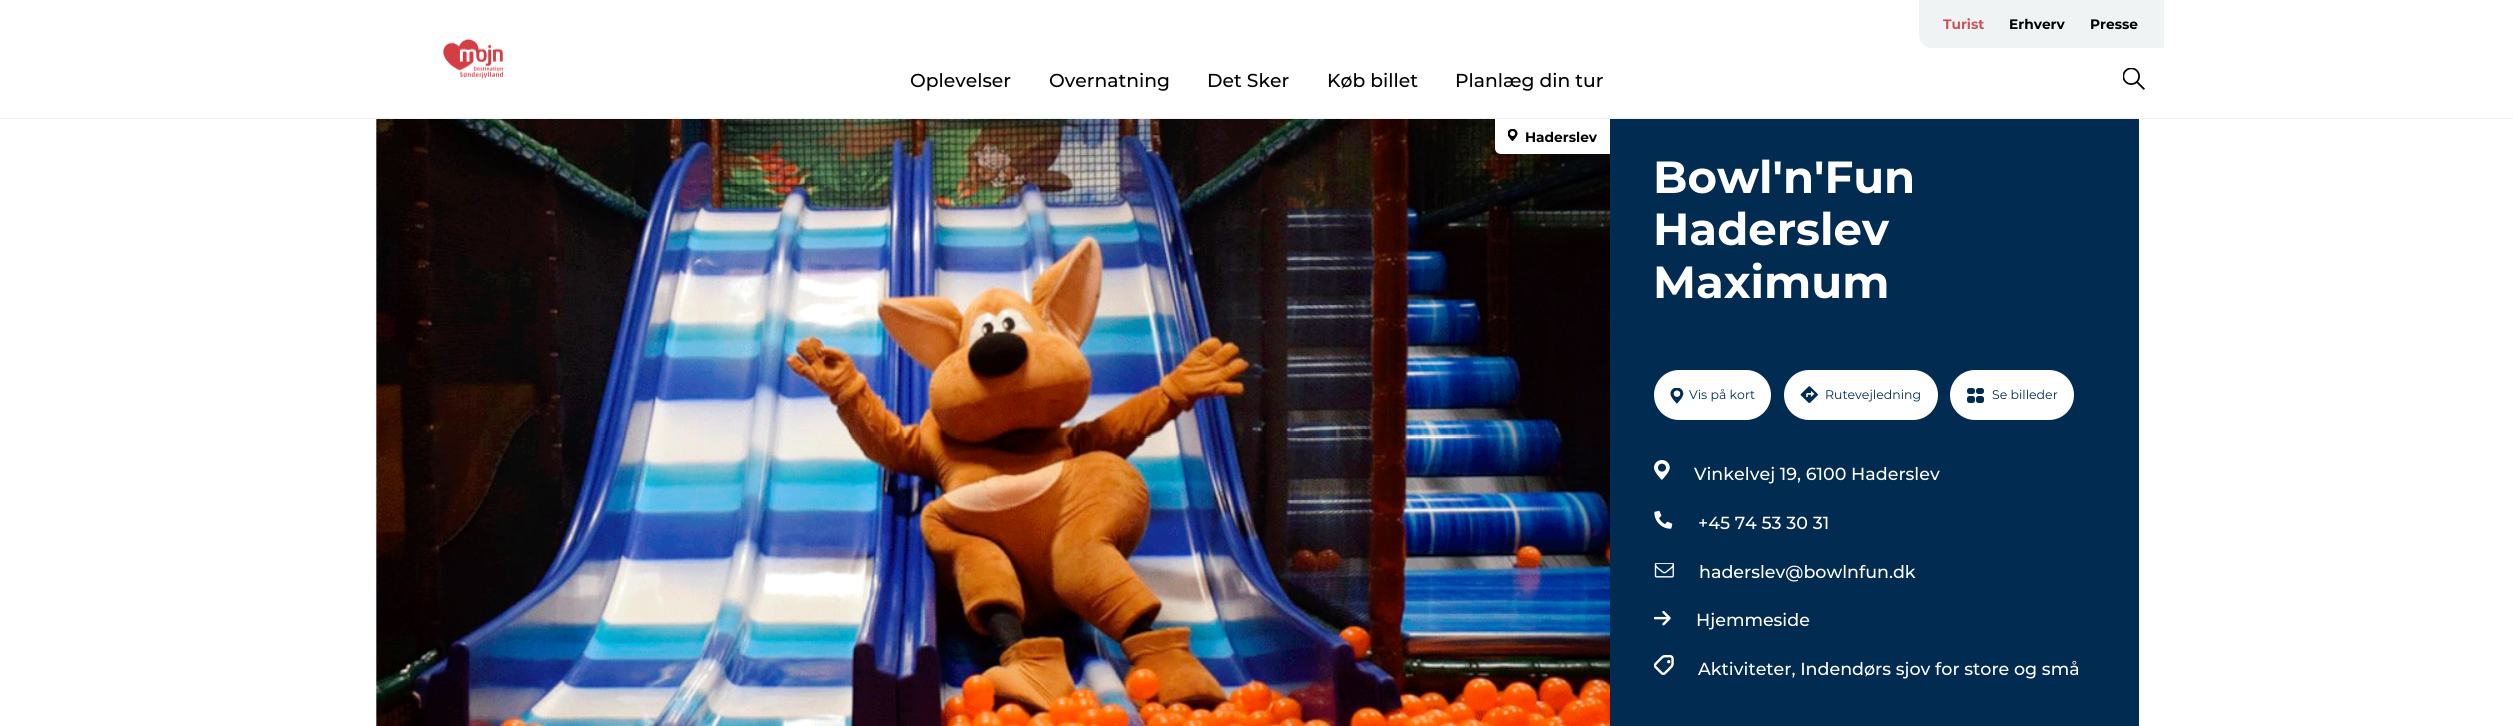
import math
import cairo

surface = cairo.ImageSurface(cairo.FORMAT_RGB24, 2513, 726)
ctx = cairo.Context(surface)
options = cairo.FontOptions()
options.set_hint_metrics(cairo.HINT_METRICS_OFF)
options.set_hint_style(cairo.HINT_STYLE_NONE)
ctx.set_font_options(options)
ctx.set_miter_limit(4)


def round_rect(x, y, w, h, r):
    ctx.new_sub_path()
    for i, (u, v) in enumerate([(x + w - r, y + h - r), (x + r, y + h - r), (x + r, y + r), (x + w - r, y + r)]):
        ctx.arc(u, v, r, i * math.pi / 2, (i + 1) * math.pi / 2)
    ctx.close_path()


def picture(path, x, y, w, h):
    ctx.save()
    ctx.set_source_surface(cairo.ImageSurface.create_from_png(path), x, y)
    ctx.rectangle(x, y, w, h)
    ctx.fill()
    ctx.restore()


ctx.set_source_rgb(1, 1, 1)
ctx.paint()
ctx.set_source_rgb(0.941, 0.945, 0.953)
ctx.rectangle(0, 118, 2513, 1)
ctx.fill()
picture("img1.png", 443, 38, 60, 41)
ctx.set_source_rgb(0.937, 0.953, 0.957)
ctx.new_path()
ctx.move_to(1919, 0)
ctx.line_to(2164, 0)
ctx.line_to(2164, 48)
ctx.line_to(1932, 48)
ctx.curve_to(1925, 48, 1919, 42, 1919, 35)
ctx.close_path()
ctx.fill()
ctx.select_font_face("Montserrat", cairo.FONT_SLANT_NORMAL, cairo.FONT_WEIGHT_BOLD)
ctx.set_font_size(13.75)
ctx.set_source_rgb(0.796, 0.337, 0.365)
ctx.move_to(1943, 29)
ctx.show_text("Turist")
ctx.set_source_rgb(0, 0, 0)
ctx.move_to(2009, 29)
ctx.show_text("Erhverv")
ctx.move_to(2090, 29)
ctx.show_text("Presse")
ctx.select_font_face("Montserrat Medium")
ctx.set_font_size(18.75)
ctx.move_to(910, 87)
ctx.show_text("Oplevelser")
ctx.move_to(1049, 87)
ctx.show_text("Overnatning")
ctx.move_to(1207, 87)
ctx.show_text("Det Sker")
ctx.move_to(1327, 87)
ctx.show_text("Køb billet")
ctx.move_to(1455, 87)
ctx.show_text("Planlæg din tur")
picture("img2.png", 2123, 68, 22, 22)
picture("img3.png", 376, 119, 1234, 607)
ctx.set_source_rgb(1, 1, 1)
ctx.new_path()
ctx.move_to(1495, 119)
ctx.line_to(1610, 119)
ctx.line_to(1610, 154)
ctx.line_to(1501, 154)
ctx.curve_to(1497.5, 154, 1495, 151.5, 1495, 148)
ctx.close_path()
ctx.fill()
picture("img4.png", 1508, 129, 10, 12)
ctx.select_font_face("Montserrat", cairo.FONT_SLANT_NORMAL, cairo.FONT_WEIGHT_BOLD)
ctx.set_font_size(13.75)
ctx.set_source_rgb(0, 0, 0)
ctx.move_to(1525, 142)
ctx.show_text("Haderslev")
ctx.set_source_rgb(0.008, 0.169, 0.322)
ctx.rectangle(1610, 119, 529, 607)
ctx.fill()
ctx.set_font_size(45)
ctx.set_source_rgb(1, 1, 1)
ctx.move_to(1653, 193)
ctx.show_text("Bowl'n'Fun")
ctx.move_to(1653, 245)
ctx.show_text("Haderslev")
ctx.move_to(1653, 298)
ctx.show_text("Maximum")
round_rect(1654, 370, 117, 50, 25)
ctx.fill()
picture("img5.png", 1670, 388, 14, 16)
ctx.select_font_face("Montserrat")
ctx.set_font_size(12.5)
ctx.set_source_rgb(0.008, 0.169, 0.322)
ctx.move_to(1689, 399)
ctx.show_text("Vis på kort")
ctx.set_source_rgb(1, 1, 1)
round_rect(1784, 370, 154, 50, 25)
ctx.fill()
picture("img6.png", 1800, 386, 18, 18)
ctx.set_source_rgb(0.008, 0.169, 0.322)
ctx.move_to(1825, 399)
ctx.show_text("Rutevejledning")
ctx.set_source_rgb(1, 1, 1)
round_rect(1950, 370, 124, 50, 25)
ctx.fill()
picture("img7.png", 1967, 388, 17, 15)
ctx.set_source_rgb(0.008, 0.169, 0.322)
ctx.move_to(1992, 399)
ctx.show_text("Se billeder")
picture("img8.png", 1654, 460, 16, 20)
ctx.select_font_face("Montserrat Medium")
ctx.set_font_size(17.5)
ctx.set_source_rgb(1, 1, 1)
ctx.move_to(1694, 480)
ctx.show_text("Vinkelvej 19, 6100 Haderslev")
picture("img9.png", 1654, 510, 19, 19)
ctx.move_to(1698, 529)
ctx.show_text("+45 74 53 30 31")
picture("img10.png", 1654, 563, 20, 15)
ctx.move_to(1699, 578)
ctx.show_text("haderslev@bowlnfun.dk")
picture("img11.png", 1654, 610, 17, 16)
ctx.move_to(1696, 626)
ctx.show_text("Hjemmeside")
picture("img12.png", 1654, 655, 20, 20)
ctx.move_to(1698, 675)
ctx.show_text("Aktiviteter, Indendørs sjov for store og små")
surface.write_to_png("page.png")
